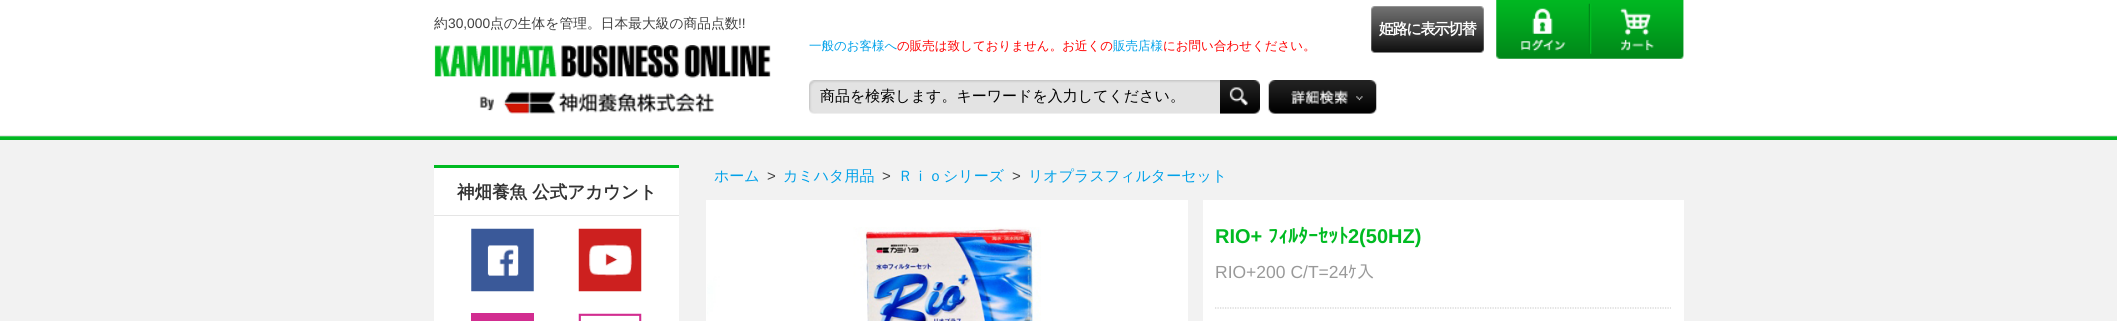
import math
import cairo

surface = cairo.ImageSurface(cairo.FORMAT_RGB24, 2117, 321)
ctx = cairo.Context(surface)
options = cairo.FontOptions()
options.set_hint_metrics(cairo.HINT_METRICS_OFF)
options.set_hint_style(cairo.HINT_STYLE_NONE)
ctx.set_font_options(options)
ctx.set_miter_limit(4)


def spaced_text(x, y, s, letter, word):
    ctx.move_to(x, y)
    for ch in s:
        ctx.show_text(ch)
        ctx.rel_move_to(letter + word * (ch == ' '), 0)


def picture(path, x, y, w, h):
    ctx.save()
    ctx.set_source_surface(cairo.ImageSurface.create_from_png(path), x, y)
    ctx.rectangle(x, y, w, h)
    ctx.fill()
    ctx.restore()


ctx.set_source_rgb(0.949, 0.949, 0.949)
ctx.paint()
ctx.set_source_rgb(1, 1, 1)
ctx.rectangle(0, 0, 2117, 135)
ctx.fill()
picture("img1.png", 0, 135, 2117, 5)
ctx.select_font_face("WenQuanYi Zen Hei Medium")
ctx.set_font_size(13.75)
ctx.set_source_rgb(0.251, 0.251, 0.251)
ctx.move_to(434, 28)
ctx.show_text("約")
ctx.select_font_face("Liberation Sans")
ctx.move_to(448, 28)
ctx.show_text("30,000")
ctx.select_font_face("WenQuanYi Zen Hei Medium")
ctx.move_to(490, 28)
ctx.show_text("点の生体を管理。日本最大級の商品点数")
ctx.select_font_face("Liberation Sans")
ctx.move_to(738, 28)
ctx.show_text("!!")
picture("img2.png", 434, 45, 337, 69)
picture("img3.png", 1371, 6, 113, 47)
ctx.select_font_face("WenQuanYi Zen Hei", cairo.FONT_SLANT_NORMAL, cairo.FONT_WEIGHT_BOLD)
ctx.set_font_size(15)
ctx.set_source_rgb(1, 1, 1)
spaced_text(1379, 34, "姫路に表示切替", -1.25, 0)
picture("img4.png", 1496, 0, 94, 59)
picture("img5.png", 1590, 0, 94, 59)
ctx.select_font_face("WenQuanYi Zen Hei Medium")
ctx.set_font_size(12.5)
ctx.set_source_rgb(0, 0.631, 0.914)
ctx.move_to(809, 50)
ctx.show_text("一般のお客様へ")
ctx.set_source_rgb(1, 0, 0)
ctx.move_to(897, 50)
ctx.show_text("の販売は致しておりません。お近くの")
ctx.set_source_rgb(0, 0.631, 0.914)
ctx.move_to(1113, 50)
ctx.show_text("販売店様")
ctx.set_source_rgb(1, 0, 0)
ctx.move_to(1163, 50)
ctx.show_text("にお問い合わせください。")
picture("img6.png", 809, 80, 411, 34)
ctx.set_source_rgb(0.89, 0.89, 0.89)
ctx.rectangle(814, 83, 1, 1)
ctx.fill()
ctx.set_font_size(15)
ctx.set_source_rgb(0, 0, 0)
ctx.move_to(820, 101)
ctx.show_text("商品を検索します。キーワードを入力してください。")
picture("img7.png", 1220, 80, 40, 34)
picture("img8.png", 1268, 80, 109, 34)
ctx.set_source_rgb(1, 1, 1)
ctx.rectangle(434, 168, 245, 153)
ctx.fill()
ctx.set_source_rgb(0, 0.733, 0.133)
ctx.rectangle(434, 165, 245, 3)
ctx.fill()
ctx.set_source_rgb(0.898, 0.898, 0.898)
ctx.rectangle(434, 215, 245, 1)
ctx.fill()
ctx.select_font_face("WenQuanYi Zen Hei", cairo.FONT_SLANT_NORMAL, cairo.FONT_WEIGHT_BOLD)
ctx.set_font_size(17.5)
ctx.set_source_rgb(0.2, 0.2, 0.2)
ctx.move_to(457, 198)
ctx.show_text("神畑養魚 公式アカウント")
picture("img9.png", 471, 228, 63, 64)
picture("img10.png", 578, 228, 64, 64)
ctx.set_source_rgb(0.824, 0.176, 0.565)
ctx.rectangle(471, 313, 63, 8)
ctx.fill()
picture("img11.png", 578, 313, 64, 8)
ctx.select_font_face("WenQuanYi Zen Hei Medium")
ctx.set_font_size(15)
ctx.set_source_rgb(0, 0.631, 0.914)
ctx.move_to(714, 181)
ctx.show_text("ホーム")
ctx.select_font_face("Liberation Sans")
ctx.set_source_rgb(0.251, 0.251, 0.251)
ctx.move_to(767, 181)
ctx.show_text(">")
ctx.select_font_face("WenQuanYi Zen Hei Medium")
ctx.set_source_rgb(0, 0.631, 0.914)
ctx.move_to(783, 181)
ctx.show_text("カミハタ用品")
ctx.select_font_face("Liberation Sans")
ctx.set_source_rgb(0.251, 0.251, 0.251)
ctx.move_to(882, 181)
ctx.show_text(">")
ctx.select_font_face("WenQuanYi Zen Hei Medium")
ctx.set_source_rgb(0, 0.631, 0.914)
ctx.move_to(898, 181)
ctx.show_text("Ｒｉｏシリーズ")
ctx.select_font_face("Liberation Sans")
ctx.set_source_rgb(0.251, 0.251, 0.251)
ctx.move_to(1012, 181)
ctx.show_text(">")
ctx.select_font_face("WenQuanYi Zen Hei Medium")
ctx.set_source_rgb(0, 0.631, 0.914)
ctx.move_to(1028, 181)
ctx.show_text("リオプラスフィルターセット")
ctx.set_source_rgb(1, 1, 1)
ctx.rectangle(706, 200, 482, 121)
ctx.fill()
picture("img12.png", 707, 227, 334, 94)
ctx.rectangle(1203, 200, 481, 121)
ctx.fill()
ctx.select_font_face("Liberation Sans", cairo.FONT_SLANT_NORMAL, cairo.FONT_WEIGHT_BOLD)
ctx.set_font_size(20)
ctx.set_source_rgb(0, 0.733, 0.133)
ctx.move_to(1215, 243)
ctx.show_text("RIO+")
ctx.select_font_face("IPAPGothic", cairo.FONT_SLANT_NORMAL, cairo.FONT_WEIGHT_BOLD)
ctx.move_to(1268, 243)
ctx.show_text("ﾌｨﾙﾀｰｾｯﾄ")
ctx.select_font_face("Liberation Sans", cairo.FONT_SLANT_NORMAL, cairo.FONT_WEIGHT_BOLD)
ctx.move_to(1348, 243)
ctx.show_text("2(50HZ)")
ctx.select_font_face("Liberation Sans")
ctx.set_font_size(17.5)
ctx.set_source_rgb(0.6, 0.6, 0.6)
ctx.move_to(1215, 278)
ctx.show_text("RIO+200 C/T=24")
ctx.select_font_face("IPAPGothic")
ctx.move_to(1348, 278)
ctx.show_text("ｹ入")
ctx.new_path()
ctx.move_to(1215, 308)
ctx.line_to(1671, 308)
ctx.set_source_rgb(0.816, 0.816, 0.816)
ctx.set_line_width(1.2)
ctx.set_dash([1.25, 1.25])
ctx.stroke()
surface.write_to_png("page.png")
